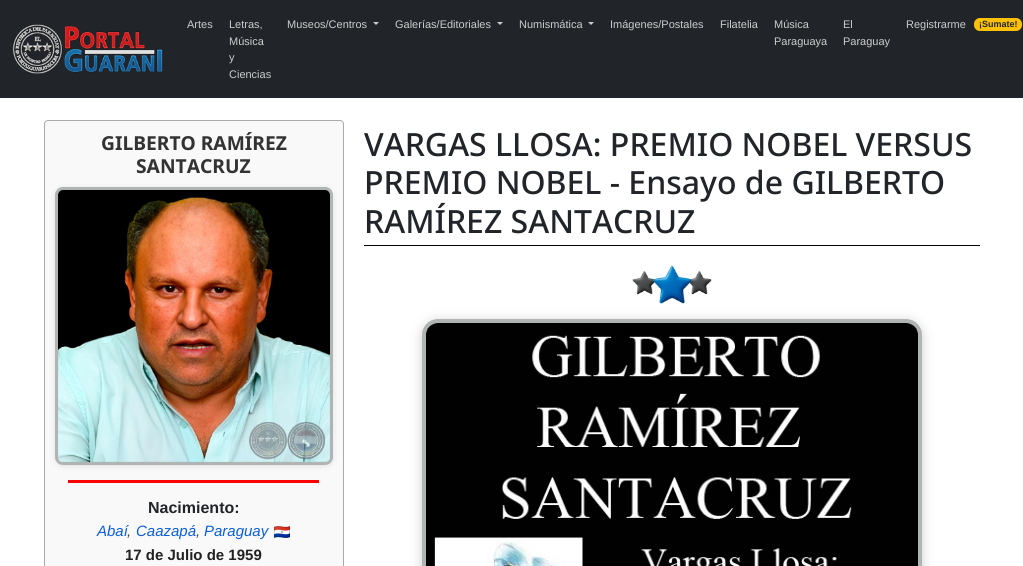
import math
import cairo

surface = cairo.ImageSurface(cairo.FORMAT_RGB24, 1023, 566)
ctx = cairo.Context(surface)
options = cairo.FontOptions()
options.set_hint_metrics(cairo.HINT_METRICS_OFF)
options.set_hint_style(cairo.HINT_STYLE_NONE)
ctx.set_font_options(options)
ctx.set_miter_limit(4)


def round_rect(x, y, w, h, r):
    ctx.new_sub_path()
    for i, (u, v) in enumerate([(x + w - r, y + h - r), (x + r, y + h - r), (x + r, y + r), (x + w - r, y + r)]):
        ctx.arc(u, v, r, i * math.pi / 2, (i + 1) * math.pi / 2)
    ctx.close_path()


def shadow(x, y, w, h, r, blur, alpha):
    ctx.push_group_with_content(cairo.CONTENT_ALPHA)
    ctx.set_operator(cairo.OPERATOR_SOURCE)
    for i in range(15, -16, -2):
        e = blur * i / 6
        if min(w, h) + 2 * e > 0:
            ctx.set_source_rgba(0, 0, 0, alpha * math.erfc((i - 1) / 8.5) / 2)
            round_rect(x - e, y - e, w + 2 * e, h + 2 * e, max(0, min(r + e + blur * .6, min(w, h) / 2 + e)))
            ctx.fill()
    ctx.mask(ctx.pop_group())


def picture(path, x, y, w, h):
    ctx.save()
    ctx.set_source_surface(cairo.ImageSurface.create_from_png(path), x, y)
    ctx.rectangle(x, y, w, h)
    ctx.fill()
    ctx.restore()


ctx.set_source_rgb(1, 1, 1)
ctx.paint()
ctx.set_source_rgb(0.129, 0.145, 0.161)
ctx.rectangle(0, 0, 1023, 98)
ctx.fill()
picture("img1.png", 12, 24, 151, 50)
ctx.select_font_face("Liberation Sans")
ctx.set_font_size(11)
ctx.set_source_rgb(0.8, 0.8, 0.8)
ctx.move_to(187, 28)
ctx.show_text("Artes")
ctx.move_to(229, 28)
ctx.show_text("Letras,")
ctx.move_to(229, 45)
ctx.show_text("Música")
ctx.move_to(229, 61)
ctx.show_text("y")
ctx.move_to(229, 78)
ctx.show_text("Ciencias")
ctx.move_to(287, 28)
ctx.show_text("Museos/Centros")
ctx.new_path()
ctx.move_to(373, 22)
ctx.line_to(379, 22)
ctx.line_to(376, 25)
ctx.close_path()
ctx.fill()
ctx.move_to(395, 28)
ctx.show_text("Galerías/Editoriales")
ctx.new_path()
ctx.move_to(497, 22)
ctx.line_to(503, 22)
ctx.line_to(500, 25)
ctx.close_path()
ctx.fill()
ctx.move_to(519, 28)
ctx.show_text("Numismática")
ctx.new_path()
ctx.move_to(588, 22)
ctx.line_to(594, 22)
ctx.line_to(591, 25)
ctx.close_path()
ctx.fill()
ctx.move_to(610, 28)
ctx.show_text("Imágenes/Postales")
ctx.move_to(720, 28)
ctx.show_text("Filatelia")
ctx.move_to(774, 28)
ctx.show_text("Música")
ctx.move_to(774, 45)
ctx.show_text("Paraguaya")
ctx.move_to(843, 28)
ctx.show_text("El")
ctx.move_to(843, 45)
ctx.show_text("Paraguay")
ctx.move_to(906, 28)
ctx.show_text("Registrarme")
ctx.set_source_rgb(1, 0.757, 0.027)
round_rect(974, 18, 48, 13, 6)
ctx.fill()
ctx.select_font_face("Liberation Sans", cairo.FONT_SLANT_NORMAL, cairo.FONT_WEIGHT_BOLD)
ctx.set_font_size(9)
ctx.set_source_rgb(0.129, 0.145, 0.161)
ctx.move_to(979, 27)
ctx.show_text("¡Sumate!")
ctx.set_source_rgb(0.976, 0.976, 0.976)
round_rect(44.5, 120.5, 299, 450, 3.5)
ctx.fill_preserve()
ctx.set_source_rgb(0.667, 0.667, 0.667)
ctx.set_line_width(1)
ctx.stroke()
ctx.select_font_face("Noto Sans", cairo.FONT_SLANT_NORMAL, cairo.FONT_WEIGHT_BOLD)
ctx.set_font_size(19.25)
ctx.set_source_rgb(0.2, 0.2, 0.2)
ctx.move_to(101, 150)
ctx.show_text("GILBERTO RAMÍREZ")
ctx.move_to(136, 173)
ctx.show_text("SANTACRUZ")
ctx.set_source_rgb(0, 0, 0)
shadow(55, 188, 278, 278, 8, 3, 0.1)
round_rect(56.5, 188.5, 275, 275, 6.5)
ctx.set_source_rgb(0.69, 0.706, 0.702)
ctx.set_line_width(3)
ctx.stroke()
picture("img2.png", 58, 190, 272, 272)
ctx.set_source_rgb(1, 0, 0)
ctx.rectangle(68, 480, 251, 3)
ctx.fill()
ctx.select_font_face("Liberation Sans", cairo.FONT_SLANT_NORMAL, cairo.FONT_WEIGHT_BOLD)
ctx.set_font_size(16)
ctx.set_source_rgb(0.129, 0.145, 0.161)
ctx.move_to(148, 513)
ctx.show_text("Nacimiento:")
ctx.select_font_face("Liberation Sans", cairo.FONT_SLANT_ITALIC)
ctx.set_font_size(15)
ctx.set_source_rgb(0.043, 0.369, 0.843)
ctx.move_to(97, 536)
ctx.show_text("Abaí")
ctx.move_to(136, 536)
ctx.show_text("Caazapá")
ctx.move_to(204, 536)
ctx.show_text("Paraguay")
picture("img3.png", 274, 526, 16, 12)
ctx.set_source_rgb(0.267, 0.267, 0.267)
ctx.move_to(127, 536)
ctx.show_text(",")
ctx.move_to(196, 536)
ctx.show_text(",")
ctx.select_font_face("Liberation Sans", cairo.FONT_SLANT_NORMAL, cairo.FONT_WEIGHT_BOLD)
ctx.set_source_rgb(0.133, 0.133, 0.133)
ctx.move_to(125, 560)
ctx.show_text("17 de Julio de 1959")
ctx.select_font_face("Noto Sans Medium")
ctx.set_font_size(32)
ctx.set_source_rgb(0.129, 0.145, 0.161)
ctx.move_to(364, 156)
ctx.show_text("VARGAS LLOSA: PREMIO NOBEL VERSUS")
ctx.move_to(364, 194)
ctx.show_text("PREMIO NOBEL - Ensayo de GILBERTO")
ctx.move_to(364, 233)
ctx.show_text("RAMÍREZ SANTACRUZ")
ctx.set_source_rgb(0, 0, 0)
ctx.rectangle(364, 245, 616, 1)
ctx.fill()
ctx.set_source_rgb(0, 0, 0)
shadow(422, 321, 500, 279, 16, 6, 0.2)
picture("img4.png", 632, 266, 80, 38)
round_rect(424, 321, 496, 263, 14)
ctx.set_source_rgb(0.69, 0.706, 0.702)
ctx.set_line_width(4)
ctx.stroke()
picture("img5.png", 426, 323, 492, 243)
surface.write_to_png("page.png")
